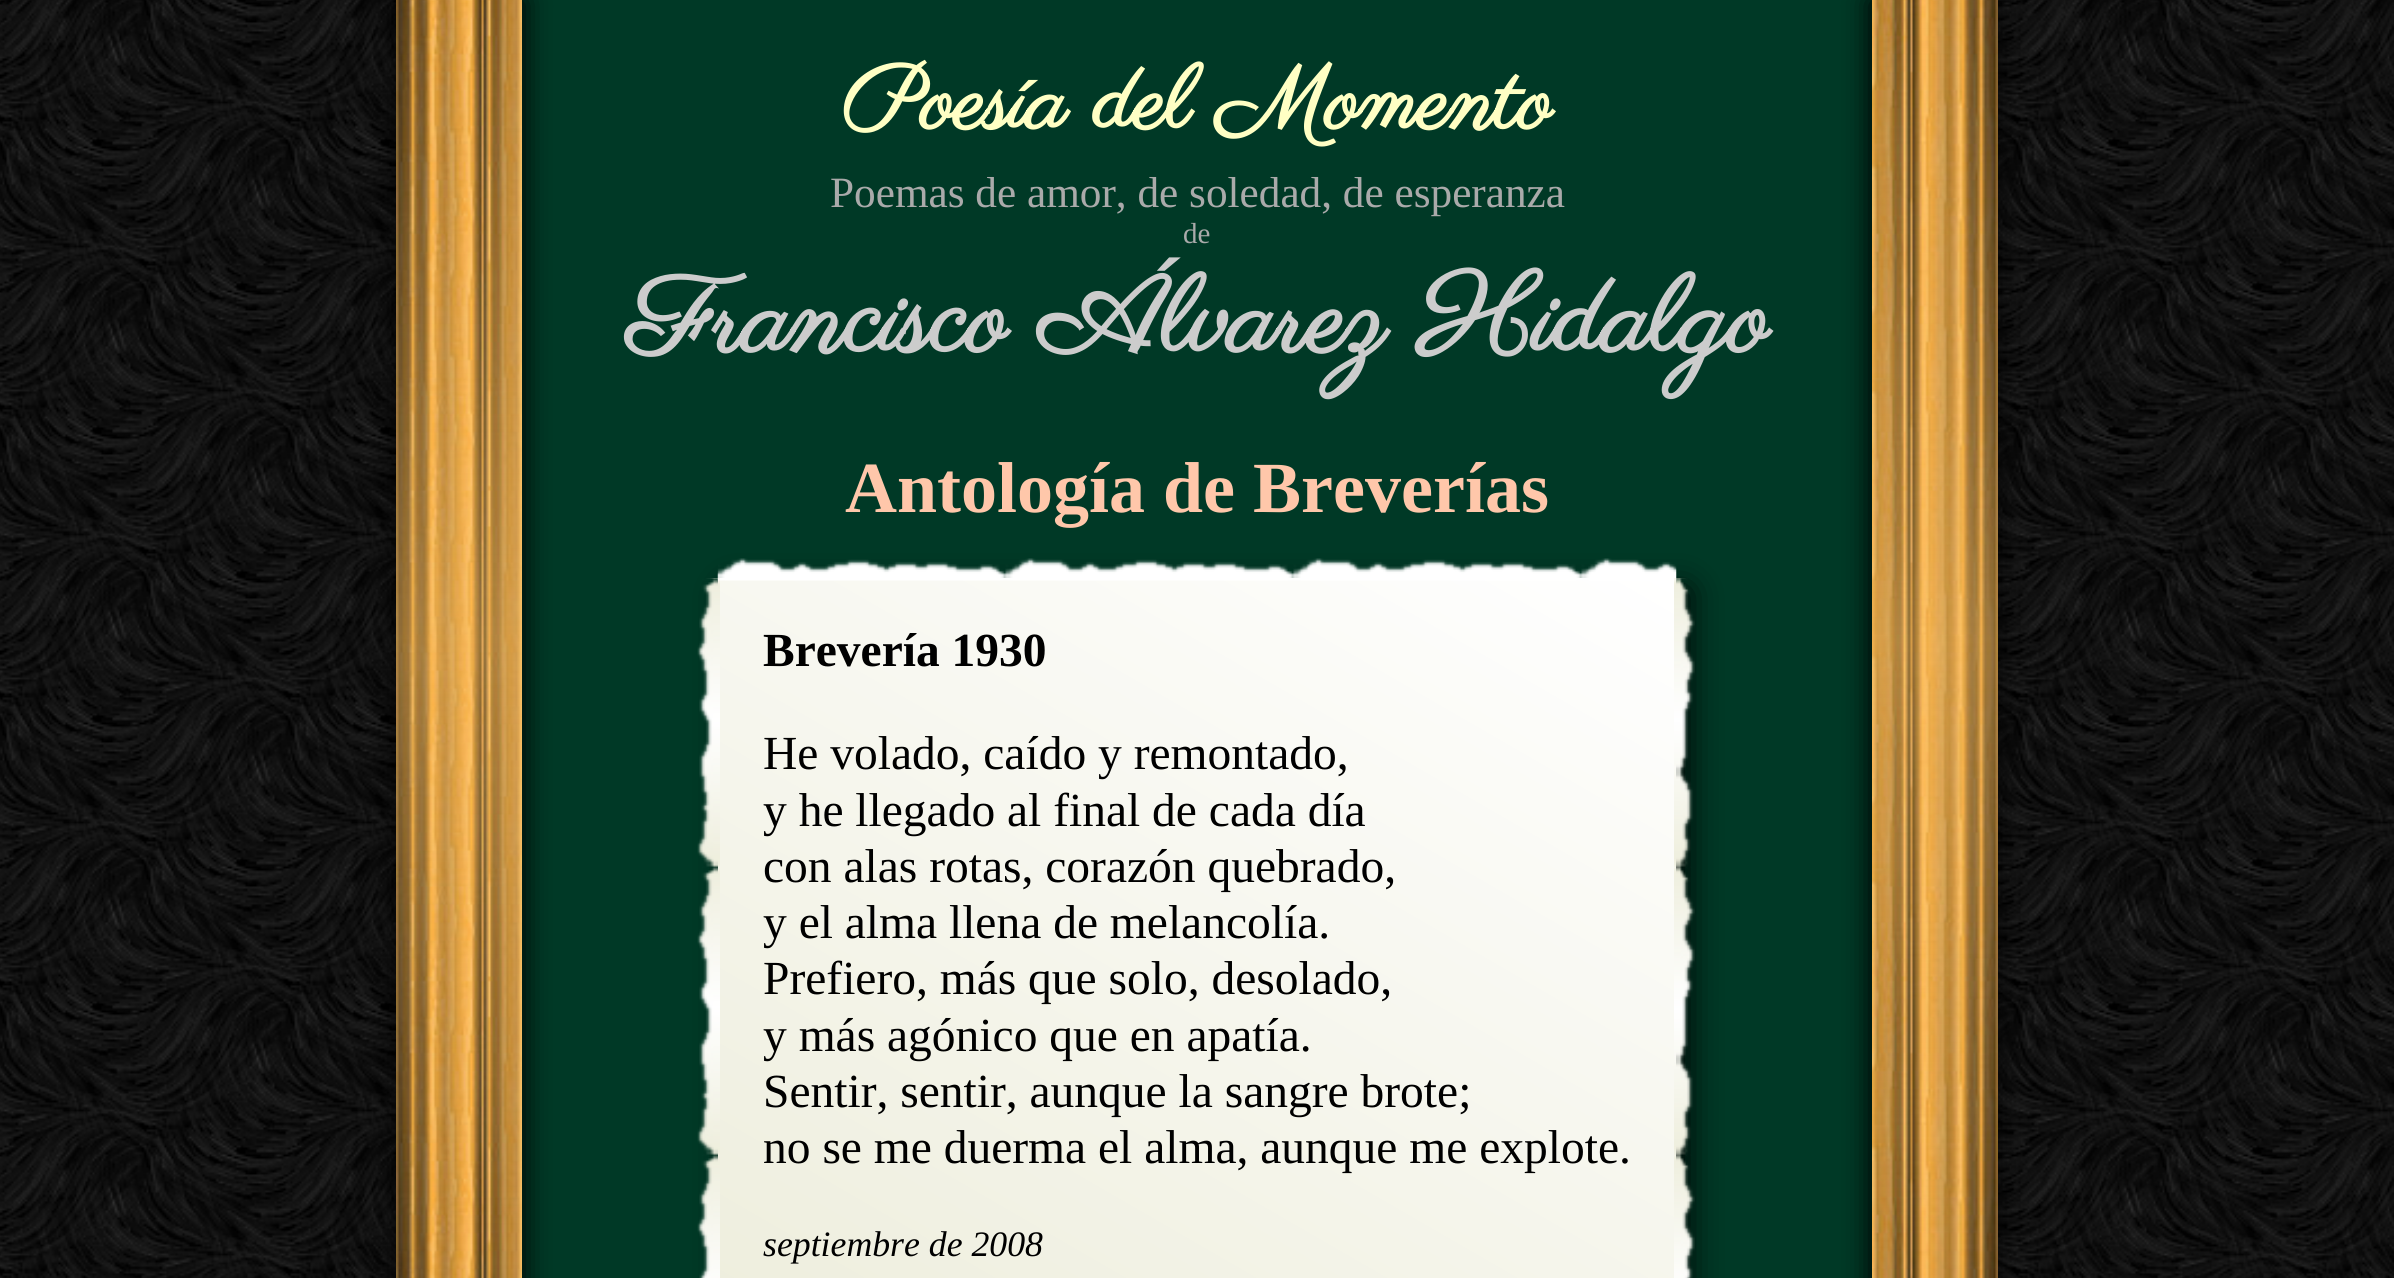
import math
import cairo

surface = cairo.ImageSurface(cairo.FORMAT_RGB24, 2394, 1278)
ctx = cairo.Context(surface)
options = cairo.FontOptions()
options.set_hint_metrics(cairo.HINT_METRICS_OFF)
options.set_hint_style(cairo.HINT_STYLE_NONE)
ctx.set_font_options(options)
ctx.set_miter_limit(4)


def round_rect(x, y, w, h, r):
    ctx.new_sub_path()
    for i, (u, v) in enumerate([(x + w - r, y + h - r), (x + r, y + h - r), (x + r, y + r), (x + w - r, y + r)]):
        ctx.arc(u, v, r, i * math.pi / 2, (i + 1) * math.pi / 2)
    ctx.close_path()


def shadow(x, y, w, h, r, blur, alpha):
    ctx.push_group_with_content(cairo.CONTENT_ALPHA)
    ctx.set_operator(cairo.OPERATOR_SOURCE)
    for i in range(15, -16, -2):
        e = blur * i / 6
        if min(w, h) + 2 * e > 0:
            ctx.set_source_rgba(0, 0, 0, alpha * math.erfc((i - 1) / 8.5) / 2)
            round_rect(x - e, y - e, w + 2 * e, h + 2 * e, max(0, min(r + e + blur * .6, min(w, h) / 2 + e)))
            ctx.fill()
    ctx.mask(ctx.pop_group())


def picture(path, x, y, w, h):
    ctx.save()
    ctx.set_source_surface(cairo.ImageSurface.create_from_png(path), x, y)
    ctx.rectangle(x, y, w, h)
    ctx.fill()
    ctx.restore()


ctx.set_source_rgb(1, 1, 1)
ctx.paint()
picture("img1.png", 0, 0, 2394, 1278)
ctx.set_source_rgb(0, 0.224, 0.149)
ctx.rectangle(522, 0, 1350, 1278)
ctx.fill()
ctx.set_source_rgb(0, 0, 0)
shadow(398, 0, 126, 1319, 0, 13.5, 1)
picture("img2.png", 396, 0, 126, 1278)
ctx.select_font_face("Parisienne", cairo.FONT_SLANT_NORMAL, cairo.FONT_WEIGHT_BOLD)
ctx.set_font_size(90)
ctx.set_source_rgb(1, 1, 0.769)
ctx.move_to(842, 128)
ctx.show_text("Poesía del Momento")
ctx.set_source_rgb(0, 0, 0)
shadow(1870, 0, 126, 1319, 0, 13.5, 1)
picture("img3.png", 1872, 0, 126, 1278)
ctx.select_font_face("Liberation Serif")
ctx.set_font_size(43.25)
ctx.set_source_rgb(0.667, 0.667, 0.667)
ctx.move_to(830, 207)
ctx.show_text("Poemas de amor, de soledad, de esperanza")
ctx.set_font_size(29)
ctx.move_to(1183, 243)
ctx.show_text("de")
ctx.select_font_face("Parisienne", cairo.FONT_SLANT_NORMAL, cairo.FONT_WEIGHT_BOLD)
ctx.set_font_size(108)
ctx.set_source_rgb(0.8, 0.8, 0.8)
ctx.move_to(626, 351)
ctx.show_text("Francisco Álvarez Hidalgo")
ctx.select_font_face("Liberation Serif", cairo.FONT_SLANT_NORMAL, cairo.FONT_WEIGHT_BOLD)
ctx.set_font_size(72)
ctx.set_source_rgb(1, 0.78, 0.667)
ctx.move_to(845, 512)
ctx.show_text("Antología de Breverías")
ctx.set_source_rgb(0, 0, 0)
shadow(729, 590, 959, 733, 0, 17, 1)
gradient = cairo.LinearGradient(918, 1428, 1476, 462)
gradient.add_color_stop_rgba(0, 0.933, 0.933, 0.867, 1)
gradient.add_color_stop_rgba(1, 1, 1, 1, 1)
ctx.set_source(gradient)
ctx.rectangle(718, 578, 958, 700)
ctx.fill()
picture("img4.png", 717, 558, 960, 23)
picture("img5.png", 697, 578, 23, 700)
ctx.set_font_size(47.5)
ctx.set_source_rgb(0, 0, 0)
ctx.move_to(763, 666)
ctx.show_text("Brevería 1930")
ctx.select_font_face("Liberation Serif")
ctx.move_to(763, 769)
ctx.show_text("He volado, caído y remontado,")
ctx.move_to(763, 826)
ctx.show_text("y he llegado al final de cada día")
ctx.move_to(763, 882)
ctx.show_text("con alas rotas, corazón quebrado,")
ctx.move_to(763, 938)
ctx.show_text("y el alma llena de melancolía.")
ctx.move_to(763, 994)
ctx.show_text("Prefiero, más que solo, desolado,")
ctx.move_to(763, 1051)
ctx.show_text("y más agónico que en apatía.")
ctx.move_to(763, 1107)
ctx.show_text("Sentir, sentir, aunque la sangre brote;")
ctx.move_to(763, 1163)
ctx.show_text("no se me duerma el alma, aunque me explote.")
ctx.select_font_face("Liberation Serif", cairo.FONT_SLANT_ITALIC)
ctx.set_font_size(35.75)
ctx.move_to(763, 1256)
ctx.show_text("septiembre de 2008")
picture("img6.png", 1674, 578, 21, 700)
surface.write_to_png("page.png")
